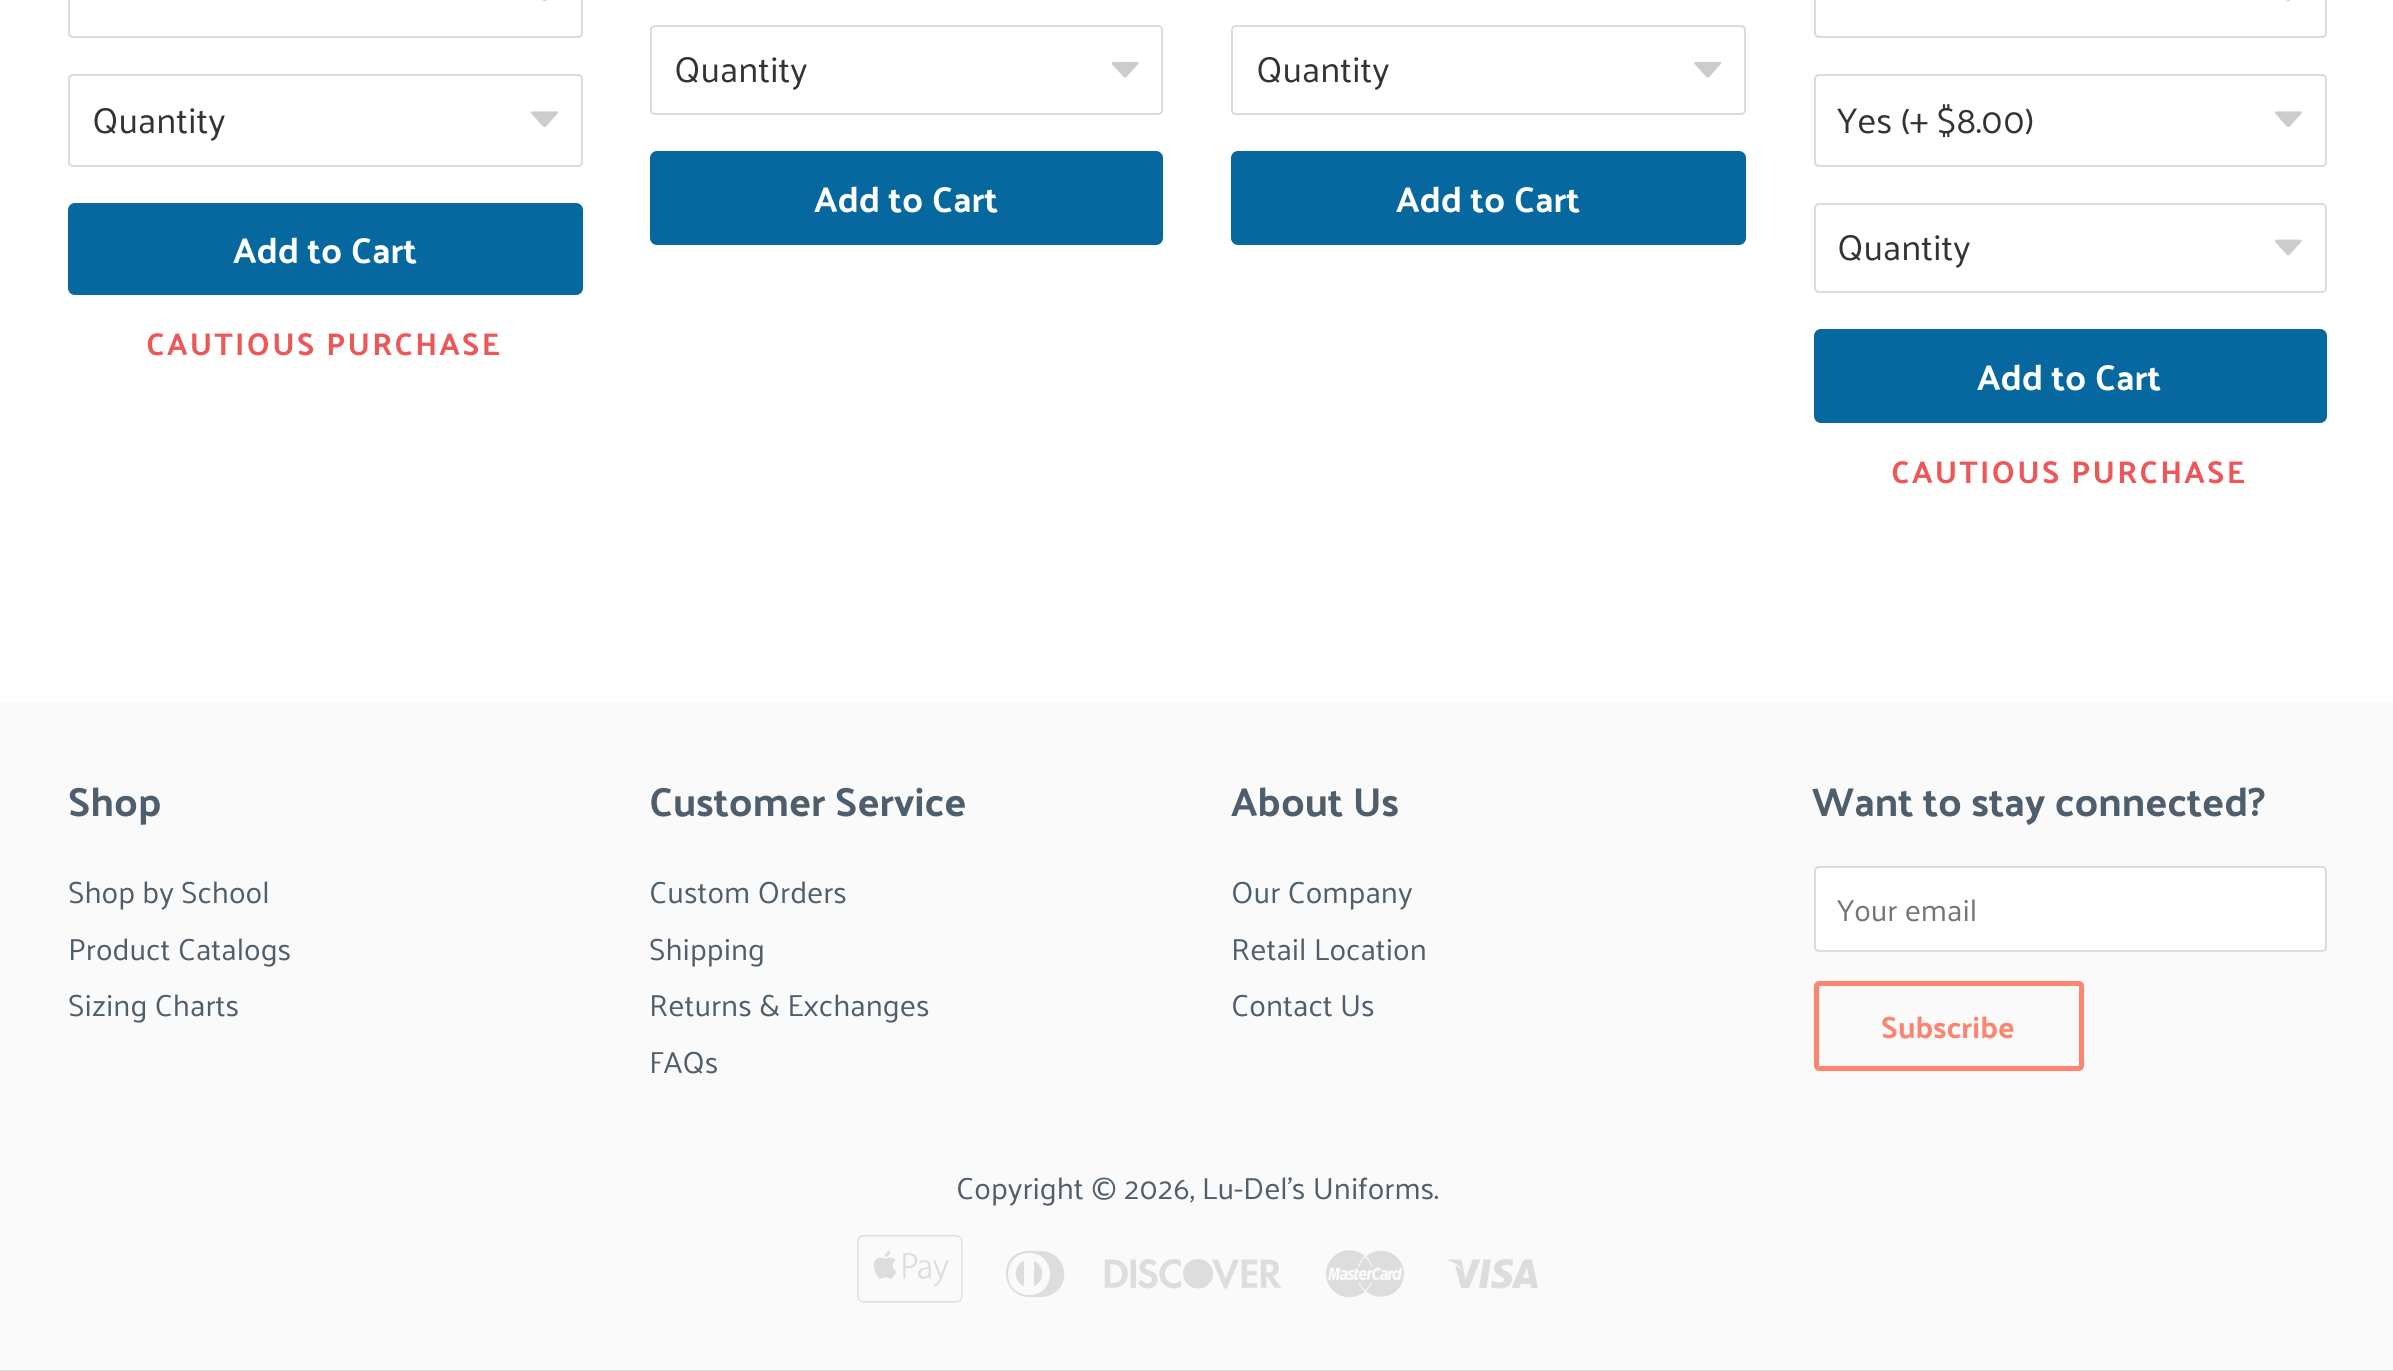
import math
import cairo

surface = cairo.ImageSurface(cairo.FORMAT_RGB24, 2393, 1371)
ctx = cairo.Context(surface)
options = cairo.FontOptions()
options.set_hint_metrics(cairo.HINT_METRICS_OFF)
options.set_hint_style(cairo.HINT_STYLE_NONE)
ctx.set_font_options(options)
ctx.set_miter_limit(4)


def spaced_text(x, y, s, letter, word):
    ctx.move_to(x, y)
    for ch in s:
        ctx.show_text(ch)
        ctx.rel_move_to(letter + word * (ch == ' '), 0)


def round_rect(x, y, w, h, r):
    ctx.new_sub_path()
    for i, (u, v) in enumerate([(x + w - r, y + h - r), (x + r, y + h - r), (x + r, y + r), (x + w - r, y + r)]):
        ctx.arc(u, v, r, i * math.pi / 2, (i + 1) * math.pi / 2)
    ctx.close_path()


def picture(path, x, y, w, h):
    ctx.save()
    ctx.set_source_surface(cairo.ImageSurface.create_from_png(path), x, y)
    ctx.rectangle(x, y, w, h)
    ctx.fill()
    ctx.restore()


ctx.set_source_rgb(1, 1, 1)
ctx.paint()
picture("img1.png", 542, 0, 5, 1)
round_rect(69, -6, 513, 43, 4)
ctx.set_source_rgb(0.859, 0.859, 0.859)
ctx.stroke()
picture("img2.png", 531, 111, 27, 16)
round_rect(69, 75, 513, 91, 4)
ctx.stroke()
ctx.select_font_face("Palanquin")
ctx.set_font_size(36)
ctx.set_source_rgb(0.2, 0.2, 0.2)
ctx.move_to(92, 133)
ctx.show_text("Quantity")
ctx.set_source_rgb(0.027, 0.408, 0.624)
round_rect(68, 203, 515, 92, 7)
ctx.fill()
ctx.select_font_face("Palanquin", cairo.FONT_SLANT_NORMAL, cairo.FONT_WEIGHT_BOLD)
ctx.set_source_rgb(1, 1, 1)
ctx.move_to(233, 263)
ctx.show_text("Add to Cart")
ctx.set_font_size(31.5)
ctx.set_source_rgb(0.922, 0.341, 0.341)
spaced_text(146, 355, "CAUTIOUS PURCHASE", 2.25, 0)
picture("img3.png", 1112, 61, 27, 17)
round_rect(651, 26, 511, 88, 4)
ctx.set_source_rgb(0.859, 0.859, 0.859)
ctx.stroke()
ctx.select_font_face("Palanquin")
ctx.set_font_size(36)
ctx.set_source_rgb(0.2, 0.2, 0.2)
ctx.move_to(674, 82)
ctx.show_text("Quantity")
ctx.set_source_rgb(0.027, 0.408, 0.624)
round_rect(650, 151, 513, 94, 7)
ctx.fill()
ctx.select_font_face("Palanquin", cairo.FONT_SLANT_NORMAL, cairo.FONT_WEIGHT_BOLD)
ctx.set_source_rgb(1, 1, 1)
ctx.move_to(814, 212)
ctx.show_text("Add to Cart")
picture("img4.png", 1694, 61, 27, 17)
round_rect(1232, 26, 513, 88, 4)
ctx.set_source_rgb(0.859, 0.859, 0.859)
ctx.stroke()
ctx.select_font_face("Palanquin")
ctx.set_source_rgb(0.2, 0.2, 0.2)
ctx.move_to(1256, 82)
ctx.show_text("Quantity")
ctx.set_source_rgb(0.027, 0.408, 0.624)
round_rect(1231, 151, 515, 94, 7)
ctx.fill()
ctx.select_font_face("Palanquin", cairo.FONT_SLANT_NORMAL, cairo.FONT_WEIGHT_BOLD)
ctx.set_source_rgb(1, 1, 1)
ctx.move_to(1396, 212)
ctx.show_text("Add to Cart")
picture("img5.png", 2286, 0, 4, 1)
round_rect(1815, -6, 511, 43, 4)
ctx.set_source_rgb(0.859, 0.859, 0.859)
ctx.stroke()
picture("img6.png", 2275, 111, 27, 16)
round_rect(1815, 75, 511, 91, 4)
ctx.stroke()
ctx.select_font_face("Palanquin")
ctx.set_source_rgb(0.2, 0.2, 0.2)
ctx.move_to(1837, 133)
ctx.show_text("Yes (+ $8.00)")
picture("img7.png", 2275, 239, 27, 17)
round_rect(1815, 204, 511, 88, 4)
ctx.set_source_rgb(0.859, 0.859, 0.859)
ctx.stroke()
ctx.set_source_rgb(0.2, 0.2, 0.2)
ctx.move_to(1837, 260)
ctx.show_text("Quantity")
ctx.set_source_rgb(0.027, 0.408, 0.624)
round_rect(1814, 329, 513, 94, 7)
ctx.fill()
ctx.select_font_face("Palanquin", cairo.FONT_SLANT_NORMAL, cairo.FONT_WEIGHT_BOLD)
ctx.set_source_rgb(1, 1, 1)
ctx.move_to(1977, 390)
ctx.show_text("Add to Cart")
ctx.set_font_size(31.5)
ctx.set_source_rgb(0.922, 0.341, 0.341)
spaced_text(1891, 483, "CAUTIOUS PURCHASE", 2.25, 0)
ctx.set_source_rgb(0.98, 0.98, 0.98)
ctx.rectangle(0, 702, 2393, 668)
ctx.fill()
ctx.set_font_size(40.5)
ctx.set_source_rgb(0.31, 0.369, 0.424)
ctx.move_to(68, 816)
ctx.show_text("Shop")
ctx.select_font_face("Palanquin")
ctx.set_font_size(30.6)
ctx.move_to(68, 903)
ctx.show_text("Shop by School")
ctx.move_to(68, 960)
ctx.show_text("Product Catalogs")
ctx.move_to(68, 1016)
ctx.show_text("Sizing Charts")
ctx.select_font_face("Palanquin", cairo.FONT_SLANT_NORMAL, cairo.FONT_WEIGHT_BOLD)
ctx.set_font_size(40.5)
ctx.move_to(649, 816)
ctx.show_text("Customer Service")
ctx.select_font_face("Palanquin")
ctx.set_font_size(30.6)
ctx.move_to(649, 903)
ctx.show_text("Custom Orders")
ctx.move_to(649, 960)
ctx.show_text("Shipping")
ctx.move_to(649, 1016)
ctx.show_text("Returns & Exchanges")
ctx.move_to(649, 1073)
ctx.show_text("FAQs")
ctx.select_font_face("Palanquin", cairo.FONT_SLANT_NORMAL, cairo.FONT_WEIGHT_BOLD)
ctx.set_font_size(40.5)
ctx.move_to(1231, 816)
ctx.show_text("About Us")
ctx.select_font_face("Palanquin")
ctx.set_font_size(30.6)
ctx.move_to(1231, 903)
ctx.show_text("Our Company")
ctx.move_to(1231, 960)
ctx.show_text("Retail Location")
ctx.move_to(1231, 1016)
ctx.show_text("Contact Us")
ctx.select_font_face("Palanquin", cairo.FONT_SLANT_NORMAL, cairo.FONT_WEIGHT_BOLD)
ctx.set_font_size(40.5)
ctx.move_to(1812, 816)
ctx.show_text("Want to stay connected?")
ctx.set_source_rgb(1, 1, 1)
round_rect(1815, 867, 511, 84, 4)
ctx.fill_preserve()
ctx.set_source_rgb(0.859, 0.859, 0.859)
ctx.stroke()
ctx.select_font_face("Palanquin")
ctx.set_font_size(30.6)
ctx.set_source_rgb(0.459, 0.459, 0.459)
ctx.move_to(1837, 921)
ctx.show_text("Your email")
round_rect(1816.5, 983.5, 265, 85, 2.5)
ctx.set_source_rgb(0.984, 0.522, 0.439)
ctx.set_line_width(5)
ctx.stroke()
ctx.select_font_face("Palanquin", cairo.FONT_SLANT_NORMAL, cairo.FONT_WEIGHT_BOLD)
ctx.move_to(1881, 1038)
ctx.show_text("Subscribe")
ctx.select_font_face("Palanquin")
ctx.set_source_rgb(0.31, 0.369, 0.424)
ctx.move_to(956, 1199)
ctx.show_text("Copyright © 2026, Lu-Del's Uniforms.")
picture("img8.png", 857, 1235, 106, 68)
ctx.set_source_rgb(0.867, 0.867, 0.867)
ctx.new_path()
ctx.move_to(1040, 1251)
ctx.curve_to(1067, 1251, 1074, 1287, 1048, 1296)
ctx.curve_to(1042, 1298, 1035, 1297, 1029, 1297)
ctx.curve_to(1003, 1297, 997, 1260, 1021, 1252)
ctx.curve_to(1027, 1250, 1034, 1251, 1040, 1251)
ctx.close_path()
ctx.move_to(1029, 1295)
ctx.curve_to(1057, 1295, 1057, 1253, 1029, 1253)
ctx.curve_to(1001, 1253, 1001, 1295, 1029, 1295)
ctx.close_path()
ctx.move_to(1024, 1286)
ctx.curve_to(1013, 1282, 1013, 1265, 1024, 1261)
ctx.close_path()
ctx.move_to(1034, 1261)
ctx.curve_to(1045, 1265, 1045, 1282, 1034, 1286)
ctx.close_path()
ctx.fill()
picture("img9.png", 1104, 1259, 177, 30)
picture("img10.png", 1326, 1250, 78, 48)
picture("img11.png", 1447, 1259, 91, 30)
ctx.set_source_rgb(0.859, 0.859, 0.859)
ctx.rectangle(0, 1370, 2393, 1)
ctx.fill()
surface.write_to_png("page.png")
